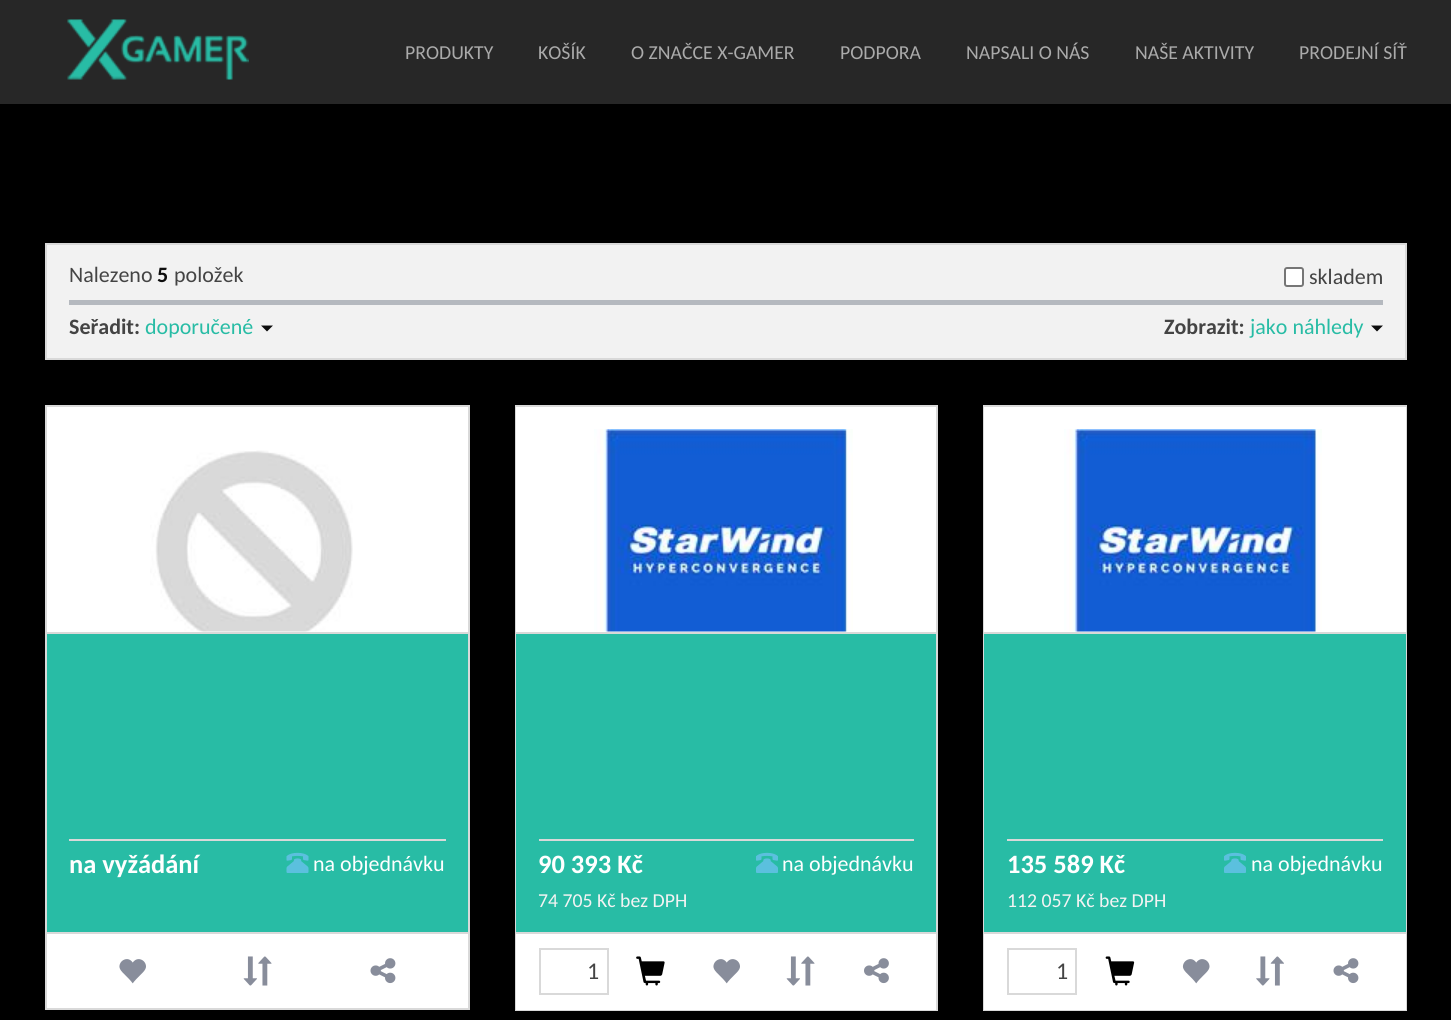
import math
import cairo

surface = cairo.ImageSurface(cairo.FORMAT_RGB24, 1451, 1020)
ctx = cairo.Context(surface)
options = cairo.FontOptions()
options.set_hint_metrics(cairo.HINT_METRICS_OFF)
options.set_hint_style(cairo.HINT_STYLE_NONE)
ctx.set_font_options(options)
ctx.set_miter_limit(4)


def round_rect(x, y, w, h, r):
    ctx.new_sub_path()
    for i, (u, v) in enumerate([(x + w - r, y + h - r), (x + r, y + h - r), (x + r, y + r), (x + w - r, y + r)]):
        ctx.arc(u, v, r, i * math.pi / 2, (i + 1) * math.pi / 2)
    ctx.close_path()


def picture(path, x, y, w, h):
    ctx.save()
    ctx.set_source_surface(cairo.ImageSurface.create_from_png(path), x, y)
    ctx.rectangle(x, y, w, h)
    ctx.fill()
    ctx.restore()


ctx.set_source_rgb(0, 0, 0)
ctx.paint()
ctx.set_source_rgb(0.153, 0.153, 0.153)
ctx.rectangle(0, 0, 1451, 104)
ctx.fill()
picture("img1.png", 67, 19, 182, 61)
ctx.select_font_face("Carlito")
ctx.set_font_size(19.75)
ctx.set_source_rgb(0.667, 0.667, 0.667)
ctx.move_to(405, 59)
ctx.show_text("PRODUKTY")
ctx.move_to(538, 59)
ctx.show_text("KOŠÍK")
ctx.move_to(631, 59)
ctx.show_text("O ZNAČCE X-GAMER")
ctx.move_to(840, 59)
ctx.show_text("PODPORA")
ctx.move_to(966, 59)
ctx.show_text("NAPSALI O NÁS")
ctx.move_to(1135, 59)
ctx.show_text("NAŠE AKTIVITY")
ctx.move_to(1299, 59)
ctx.show_text("PRODEJNÍ SÍŤ")
ctx.set_source_rgb(0.949, 0.949, 0.949)
ctx.rectangle(46, 244, 1360, 115)
ctx.fill_preserve()
ctx.set_source_rgb(0.851, 0.851, 0.851)
ctx.stroke()
ctx.set_font_size(22)
ctx.set_source_rgb(0.267, 0.267, 0.267)
ctx.move_to(69, 282)
ctx.show_text("Nalezeno")
ctx.select_font_face("Carlito", cairo.FONT_SLANT_NORMAL, cairo.FONT_WEIGHT_BOLD)
ctx.set_source_rgb(0.051, 0.051, 0.051)
ctx.move_to(157, 282)
ctx.show_text("5")
ctx.select_font_face("Carlito")
ctx.set_source_rgb(0.267, 0.267, 0.267)
ctx.move_to(174, 282)
ctx.show_text("položek")
ctx.set_source_rgb(1, 1, 1)
round_rect(1285, 268, 18, 18, 2)
ctx.fill_preserve()
ctx.set_source_rgb(0.463, 0.463, 0.463)
ctx.stroke()
ctx.set_source_rgb(0.267, 0.267, 0.267)
ctx.move_to(1309, 284)
ctx.show_text("skladem")
ctx.set_source_rgb(0.71, 0.725, 0.749)
ctx.rectangle(69, 300, 1314, 5)
ctx.fill()
ctx.select_font_face("Carlito", cairo.FONT_SLANT_NORMAL, cairo.FONT_WEIGHT_BOLD)
ctx.set_source_rgb(0.267, 0.267, 0.267)
ctx.move_to(69, 334)
ctx.show_text("Seřadit:")
ctx.select_font_face("Carlito")
ctx.set_source_rgb(0.157, 0.737, 0.647)
ctx.move_to(145, 334)
ctx.show_text("doporučené")
ctx.set_source_rgb(0.051, 0.051, 0.051)
ctx.new_path()
ctx.move_to(261, 325.5)
ctx.line_to(273, 325.5)
ctx.line_to(267, 331.5)
ctx.close_path()
ctx.fill()
ctx.select_font_face("Carlito", cairo.FONT_SLANT_NORMAL, cairo.FONT_WEIGHT_BOLD)
ctx.set_source_rgb(0.267, 0.267, 0.267)
ctx.move_to(1164, 334)
ctx.show_text("Zobrazit:")
ctx.select_font_face("Carlito")
ctx.set_source_rgb(0.157, 0.737, 0.647)
ctx.move_to(1250, 334)
ctx.show_text("jako náhledy")
ctx.set_source_rgb(0.051, 0.051, 0.051)
ctx.new_path()
ctx.move_to(1371, 325.5)
ctx.line_to(1383, 325.5)
ctx.line_to(1377, 331.5)
ctx.close_path()
ctx.fill()
ctx.rectangle(46, 406, 423, 603)
ctx.set_source_rgb(0.851, 0.851, 0.851)
ctx.stroke()
ctx.set_source_rgb(1, 1, 1)
ctx.rectangle(47, 407, 421, 225)
ctx.fill()
picture("img2.png", 150, 450, 203, 182)
ctx.set_source_rgb(0.157, 0.737, 0.647)
ctx.rectangle(47, 634, 421, 298)
ctx.fill()
ctx.set_source_rgb(0.851, 0.851, 0.851)
ctx.rectangle(47, 632, 421, 2)
ctx.fill()
ctx.rectangle(69, 839, 377, 2)
ctx.fill()
ctx.select_font_face("Carlito", cairo.FONT_SLANT_NORMAL, cairo.FONT_WEIGHT_BOLD)
ctx.set_font_size(26.5)
ctx.set_source_rgb(1, 1, 1)
ctx.move_to(69, 873)
ctx.show_text("na vyžádání")
picture("img3.png", 286, 852, 23, 21)
ctx.select_font_face("Carlito")
ctx.set_font_size(22)
ctx.move_to(313, 871)
ctx.show_text("na objednávku")
ctx.rectangle(47, 934, 421, 74)
ctx.fill()
ctx.set_source_rgb(0.851, 0.851, 0.851)
ctx.rectangle(47, 932, 421, 2)
ctx.fill()
picture("img4.png", 119, 959, 27, 25)
picture("img5.png", 243, 956, 29, 30)
picture("img6.png", 370, 958, 26, 26)
ctx.rectangle(516, 406, 421, 604)
ctx.stroke()
ctx.set_source_rgb(1, 1, 1)
ctx.rectangle(516, 407, 420, 225)
ctx.fill()
picture("img7.png", 594, 429, 259, 203)
ctx.set_source_rgb(0.157, 0.737, 0.647)
ctx.rectangle(516, 634, 420, 298)
ctx.fill()
ctx.set_source_rgb(0.851, 0.851, 0.851)
ctx.rectangle(516, 632, 420, 2)
ctx.fill()
ctx.rectangle(539, 839, 375, 2)
ctx.fill()
ctx.select_font_face("Carlito", cairo.FONT_SLANT_NORMAL, cairo.FONT_WEIGHT_BOLD)
ctx.set_font_size(26.5)
ctx.set_source_rgb(1, 1, 1)
ctx.move_to(538, 873)
ctx.show_text("90 393 Kč")
ctx.select_font_face("Carlito")
ctx.set_font_size(19.75)
ctx.set_source_rgb(0.953, 0.953, 0.953)
ctx.move_to(538, 907)
ctx.show_text("74 705 Kč bez DPH")
picture("img8.png", 756, 852, 22, 21)
ctx.set_font_size(22)
ctx.set_source_rgb(1, 1, 1)
ctx.move_to(782, 871)
ctx.show_text("na objednávku")
ctx.rectangle(516, 934, 420, 76)
ctx.fill()
ctx.set_source_rgb(0.851, 0.851, 0.851)
ctx.rectangle(516, 932, 420, 2)
ctx.fill()
ctx.rectangle(540, 949, 68, 45)
ctx.stroke()
ctx.set_font_size(24)
ctx.set_source_rgb(0.267, 0.267, 0.267)
ctx.move_to(587, 979)
ctx.show_text("1")
picture("img9.png", 636, 956, 29, 30)
picture("img4.png", 713, 959, 27, 25)
picture("img5.png", 786, 956, 29, 30)
picture("img10.png", 864, 958, 25, 26)
ctx.rectangle(984, 406, 422, 604)
ctx.set_source_rgb(0.851, 0.851, 0.851)
ctx.stroke()
ctx.set_source_rgb(1, 1, 1)
ctx.rectangle(984, 407, 422, 225)
ctx.fill()
picture("img11.png", 1064, 429, 258, 203)
ctx.set_source_rgb(0.157, 0.737, 0.647)
ctx.rectangle(984, 634, 422, 298)
ctx.fill()
ctx.set_source_rgb(0.851, 0.851, 0.851)
ctx.rectangle(984, 632, 422, 2)
ctx.fill()
ctx.rectangle(1007, 839, 376, 2)
ctx.fill()
ctx.select_font_face("Carlito", cairo.FONT_SLANT_NORMAL, cairo.FONT_WEIGHT_BOLD)
ctx.set_font_size(26.5)
ctx.set_source_rgb(1, 1, 1)
ctx.move_to(1007, 873)
ctx.show_text("135 589 Kč")
ctx.select_font_face("Carlito")
ctx.set_font_size(19.75)
ctx.set_source_rgb(0.953, 0.953, 0.953)
ctx.move_to(1007, 907)
ctx.show_text("112 057 Kč bez DPH")
picture("img8.png", 1224, 852, 22, 21)
ctx.set_font_size(22)
ctx.set_source_rgb(1, 1, 1)
ctx.move_to(1251, 871)
ctx.show_text("na objednávku")
ctx.rectangle(984, 934, 422, 76)
ctx.fill()
ctx.set_source_rgb(0.851, 0.851, 0.851)
ctx.rectangle(984, 932, 422, 2)
ctx.fill()
ctx.rectangle(1008, 949, 68, 45)
ctx.stroke()
ctx.set_font_size(24)
ctx.set_source_rgb(0.267, 0.267, 0.267)
ctx.move_to(1056, 979)
ctx.show_text("1")
picture("img12.png", 1105, 956, 30, 30)
picture("img13.png", 1182, 959, 28, 25)
picture("img14.png", 1256, 956, 28, 30)
picture("img6.png", 1333, 958, 26, 26)
surface.write_to_png("page.png")
